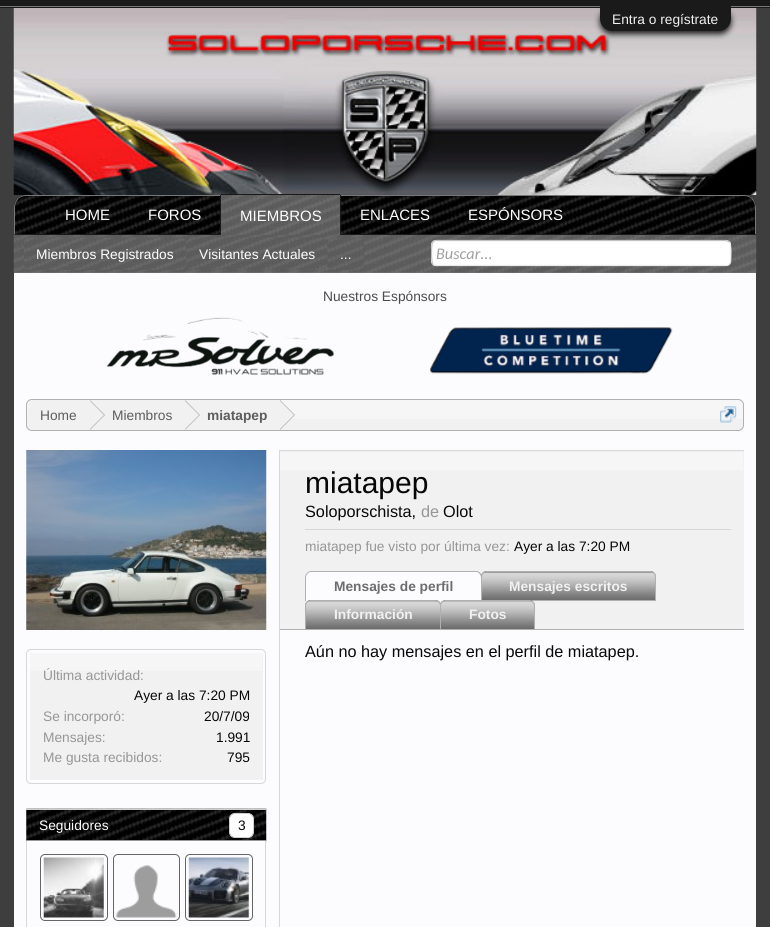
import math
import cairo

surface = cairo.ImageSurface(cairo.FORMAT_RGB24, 770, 927)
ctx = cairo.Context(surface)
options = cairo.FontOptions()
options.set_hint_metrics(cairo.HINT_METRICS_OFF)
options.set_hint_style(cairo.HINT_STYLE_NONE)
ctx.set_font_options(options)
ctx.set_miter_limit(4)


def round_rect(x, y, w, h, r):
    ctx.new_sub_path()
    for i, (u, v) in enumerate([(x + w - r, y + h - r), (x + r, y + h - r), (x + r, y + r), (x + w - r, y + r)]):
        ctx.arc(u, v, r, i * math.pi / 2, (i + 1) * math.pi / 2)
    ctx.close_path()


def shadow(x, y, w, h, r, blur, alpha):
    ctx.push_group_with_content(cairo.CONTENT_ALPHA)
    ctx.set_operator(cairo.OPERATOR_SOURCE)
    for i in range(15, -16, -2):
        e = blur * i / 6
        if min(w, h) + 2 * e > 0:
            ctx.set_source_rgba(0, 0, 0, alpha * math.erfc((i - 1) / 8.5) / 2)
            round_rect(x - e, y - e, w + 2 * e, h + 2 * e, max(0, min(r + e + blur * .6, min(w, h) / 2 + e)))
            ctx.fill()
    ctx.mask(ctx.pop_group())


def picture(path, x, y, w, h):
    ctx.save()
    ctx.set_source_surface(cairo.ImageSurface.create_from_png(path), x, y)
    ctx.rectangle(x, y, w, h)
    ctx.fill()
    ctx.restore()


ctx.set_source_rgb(0.243, 0.243, 0.243)
ctx.paint()
ctx.set_source_rgb(0.102, 0.102, 0.102)
ctx.rectangle(0, 0, 770, 8)
ctx.fill()
ctx.set_source_rgb(0.467, 0.467, 0.467)
ctx.rectangle(0, 6, 770, 1)
ctx.fill()
picture("img1.png", 13, 8, 744, 187)
ctx.set_source_rgb(0.102, 0.102, 0.102)
shadow(600, 9, 131, 25, 12.5, 3, 1)
ctx.set_source_rgb(0.102, 0.102, 0.102)
ctx.new_path()
ctx.move_to(600, 6)
ctx.line_to(731, 6)
ctx.line_to(731, 18.5)
ctx.curve_to(731, 25.5, 725.5, 31, 718.5, 31)
ctx.line_to(612.5, 31)
ctx.curve_to(605.5, 31, 600, 25.5, 600, 18.5)
ctx.close_path()
ctx.fill()
ctx.select_font_face("Liberation Sans")
ctx.set_font_size(13.75)
ctx.set_source_rgb(0.945, 0.945, 0.945)
ctx.move_to(612, 24)
ctx.show_text("Entra o regístrate")
picture("img2.png", 14, 195, 742, 40)
ctx.set_source_rgb(0.467, 0.467, 0.467)
ctx.new_path()
ctx.move_to(26, 195)
ctx.curve_to(23, 195, 20, 196, 17, 199)
ctx.line_to(18, 199)
ctx.curve_to(20, 197, 23, 196, 26, 196)
ctx.line_to(744, 196)
ctx.curve_to(747, 196, 750, 197, 752, 199)
ctx.line_to(753, 199)
ctx.curve_to(750, 196, 747, 195, 744, 195)
ctx.close_path()
ctx.fill()
ctx.new_path()
ctx.move_to(752.5, 198.5)
ctx.curve_to(754.5, 201, 756, 204.5, 756, 208)
ctx.line_to(756, 235)
ctx.line_to(755, 234)
ctx.line_to(755, 208)
ctx.curve_to(755, 204.5, 754, 201.5, 752, 199.5)
ctx.close_path()
ctx.fill()
ctx.set_source_rgb(0.102, 0.102, 0.102)
ctx.new_path()
ctx.move_to(14, 235)
ctx.line_to(756, 235)
ctx.line_to(755, 234)
ctx.line_to(15, 234)
ctx.close_path()
ctx.fill()
ctx.set_source_rgb(0.467, 0.467, 0.467)
ctx.new_path()
ctx.move_to(17.5, 198.5)
ctx.curve_to(15.5, 201, 14, 204.5, 14, 208)
ctx.line_to(14, 235)
ctx.line_to(15, 234)
ctx.line_to(15, 208)
ctx.curve_to(15, 204.5, 16, 201.5, 18, 199.5)
ctx.close_path()
ctx.fill()
ctx.set_font_size(15)
ctx.set_source_rgb(1, 1, 1)
ctx.move_to(65, 220)
ctx.show_text("HOME")
ctx.move_to(148, 220)
ctx.show_text("FOROS")
ctx.move_to(360, 220)
ctx.show_text("ENLACES")
ctx.move_to(468, 220)
ctx.show_text("ESPÓNSORS")
picture("img3.png", 221, 195, 121, 40)
ctx.set_source_rgb(0.102, 0.102, 0.102)
ctx.rectangle(221, 194, 119, 1)
ctx.fill()
ctx.rectangle(340, 195, 1, 40)
ctx.fill()
ctx.rectangle(220, 195, 1, 40)
ctx.fill()
ctx.set_source_rgb(1, 1, 1)
ctx.move_to(240, 221)
ctx.show_text("MIEMBROS")
ctx.set_source_rgb(0.467, 0.467, 0.467)
ctx.rectangle(14, 272, 742, 1)
ctx.fill()
picture("img4.png", 13, 235, 744, 38)
picture("img5.png", 24, 237, 162, 33)
ctx.set_font_size(13.75)
ctx.set_source_rgb(1, 1, 1)
ctx.move_to(36, 259)
ctx.show_text("Miembros Registrados")
picture("img6.png", 186, 237, 142, 33)
ctx.move_to(199, 259)
ctx.show_text("Visitantes Actuales")
picture("img7.png", 327, 237, 37, 33)
ctx.move_to(340, 259)
ctx.show_text("...")
round_rect(431, 240, 300, 26, 5)
ctx.fill()
ctx.new_path()
ctx.move_to(729.5, 242)
ctx.curve_to(731.5, 244, 731, 259.5, 730.5, 262)
ctx.curve_to(730, 264, 728.5, 265.5, 726, 265.5)
ctx.line_to(436, 265.5)
ctx.line_to(433, 264.5)
ctx.set_source_rgb(0.914, 0.914, 0.914)
ctx.set_line_width(1.2)
ctx.stroke()
ctx.new_path()
ctx.move_to(433, 264.5)
ctx.curve_to(431, 262, 431.5, 246.5, 432, 244)
ctx.curve_to(432.5, 242, 434, 240.5, 436, 240.5)
ctx.line_to(726, 240.5)
ctx.line_to(729.5, 242)
ctx.set_source_rgb(0.753, 0.753, 0.753)
ctx.stroke()
ctx.select_font_face("Carlito", cairo.FONT_SLANT_ITALIC)
ctx.set_font_size(16.25)
ctx.set_source_rgb(0.627, 0.627, 0.627)
ctx.move_to(436, 259)
ctx.show_text("Buscar...")
ctx.set_source_rgb(0.988, 0.988, 1)
ctx.rectangle(14, 273, 742, 654)
ctx.fill()
ctx.select_font_face("Liberation Sans")
ctx.set_font_size(13.75)
ctx.set_source_rgb(0.294, 0.294, 0.294)
ctx.move_to(323, 301)
ctx.show_text("Nuestros Espónsors")
picture("img8.png", 106, 317, 228, 58)
picture("img9.png", 430, 327, 243, 47)
ctx.set_source_rgb(0.945, 0.945, 0.945)
round_rect(26, 399, 718, 32, 6)
ctx.fill()
picture("img10.png", 27, 400, 716, 19)
round_rect(26.5, 399.5, 717, 31, 5.5)
ctx.set_source_rgb(0.69, 0.69, 0.69)
ctx.set_line_width(1)
ctx.stroke()
ctx.save()
round_rect(28, 400, 715, 30, 5)
ctx.clip()
ctx.set_source_rgb(0.945, 0.945, 0.945)
ctx.new_path()
ctx.move_to(34, 400)
ctx.line_to(90, 400)
ctx.line_to(90, 431)
ctx.line_to(34, 431)
ctx.curve_to(30.5, 431, 28, 428.5, 28, 425)
ctx.line_to(28, 406)
ctx.curve_to(28, 402.5, 30.5, 400, 34, 400)
ctx.close_path()
ctx.fill()
ctx.restore()
ctx.set_source_rgb(0.365, 0.365, 0.365)
ctx.move_to(40, 420)
ctx.show_text("Home")
ctx.set_source_rgb(0.945, 0.945, 0.945)
ctx.rectangle(90, 400, 190, 19)
ctx.fill()
ctx.set_source_rgb(0.69, 0.69, 0.69)
ctx.new_path()
ctx.move_to(90, 430)
ctx.line_to(90, 400)
ctx.line_to(105, 415)
ctx.close_path()
ctx.fill()
ctx.set_source_rgb(0.945, 0.945, 0.945)
ctx.new_path()
ctx.move_to(89, 430)
ctx.line_to(89, 400)
ctx.line_to(104, 415)
ctx.close_path()
ctx.fill()
ctx.set_source_rgb(0.365, 0.365, 0.365)
ctx.move_to(112, 420)
ctx.show_text("Miembros")
ctx.set_source_rgb(0.69, 0.69, 0.69)
ctx.new_path()
ctx.move_to(185, 430)
ctx.line_to(185, 400)
ctx.line_to(200, 415)
ctx.close_path()
ctx.fill()
ctx.set_source_rgb(0.945, 0.945, 0.945)
ctx.new_path()
ctx.move_to(184, 430)
ctx.line_to(184, 400)
ctx.line_to(199, 415)
ctx.close_path()
ctx.fill()
ctx.select_font_face("Liberation Sans", cairo.FONT_SLANT_NORMAL, cairo.FONT_WEIGHT_BOLD)
ctx.set_source_rgb(0.365, 0.365, 0.365)
ctx.move_to(207, 420)
ctx.show_text("miatapep")
ctx.set_source_rgb(0.69, 0.69, 0.69)
ctx.new_path()
ctx.move_to(280, 430)
ctx.line_to(280, 400)
ctx.line_to(295, 415)
ctx.close_path()
ctx.fill()
ctx.set_source_rgb(0.945, 0.945, 0.945)
ctx.new_path()
ctx.move_to(279, 430)
ctx.line_to(279, 400)
ctx.line_to(294, 415)
ctx.close_path()
ctx.fill()
picture("img11.png", 720, 406, 17, 17)
ctx.set_source_rgb(0.843, 0.843, 0.843)
ctx.rectangle(280, 450, 464, 1)
ctx.fill()
ctx.set_source_rgb(0.945, 0.945, 0.945)
ctx.rectangle(280, 451, 464, 178)
ctx.fill()
picture("img12.png", 280, 452, 463, 18)
ctx.select_font_face("Liberation Sans")
ctx.set_font_size(30)
ctx.set_source_rgb(0.031, 0.031, 0.031)
ctx.move_to(305, 493)
ctx.show_text("miatapep")
ctx.set_font_size(16.25)
ctx.move_to(305, 517)
ctx.show_text("Soloporschista,")
ctx.set_source_rgb(0.588, 0.588, 0.588)
ctx.move_to(421, 517)
ctx.show_text("de")
ctx.set_source_rgb(0.031, 0.031, 0.031)
ctx.move_to(443, 517)
ctx.show_text("Olot")
ctx.set_source_rgb(0.843, 0.843, 0.843)
ctx.rectangle(305, 529, 426, 1)
ctx.fill()
ctx.set_font_size(13.75)
ctx.set_source_rgb(0.588, 0.588, 0.588)
ctx.move_to(305, 551)
ctx.show_text("miatapep fue visto por última vez:")
ctx.set_source_rgb(0.031, 0.031, 0.031)
ctx.move_to(514, 551)
ctx.show_text("Ayer a las 7:20 PM")
ctx.set_source_rgb(0.69, 0.69, 0.69)
ctx.rectangle(280, 629, 464, 1)
ctx.fill()
ctx.set_source_rgb(0.988, 0.988, 1)
ctx.new_path()
ctx.move_to(311, 571)
ctx.line_to(477, 571)
ctx.curve_to(480.5, 571, 483, 573.5, 483, 577)
ctx.line_to(483, 601)
ctx.line_to(305, 601)
ctx.line_to(305, 577)
ctx.curve_to(305, 573.5, 307.5, 571, 311, 571)
ctx.close_path()
ctx.fill()
ctx.set_source_rgb(0.69, 0.69, 0.69)
ctx.set_fill_rule(cairo.FILL_RULE_EVEN_ODD)
ctx.new_path()
ctx.move_to(311, 571)
ctx.line_to(476, 571)
ctx.curve_to(480, 571, 482, 574, 482, 578)
ctx.line_to(482, 601)
ctx.line_to(305, 601)
ctx.line_to(305, 578)
ctx.curve_to(305, 574, 308, 571, 311, 571)
ctx.close_path()
ctx.move_to(311, 572)
ctx.line_to(476, 572)
ctx.curve_to(479, 572, 481, 575, 481, 578)
ctx.line_to(481, 601)
ctx.line_to(306, 601)
ctx.line_to(306, 578)
ctx.curve_to(306, 575, 308, 572, 311, 572)
ctx.close_path()
ctx.fill()
ctx.select_font_face("Liberation Sans", cairo.FONT_SLANT_NORMAL, cairo.FONT_WEIGHT_BOLD)
ctx.set_source_rgb(0.427, 0.427, 0.427)
ctx.move_to(334, 591)
ctx.show_text("Mensajes de perfil")
ctx.set_source_rgba(0, 0, 0, 0.6)
ctx.new_path()
ctx.move_to(487, 571)
ctx.line_to(650, 571)
ctx.curve_to(653.5, 571, 656, 573.5, 656, 577)
ctx.line_to(656, 601)
ctx.line_to(481, 601)
ctx.line_to(481, 577)
ctx.curve_to(481, 573.5, 483.5, 571, 487, 571)
ctx.close_path()
ctx.fill()
picture("img13.png", 481, 572, 175, 28)
ctx.new_path()
ctx.move_to(487, 571.5)
ctx.line_to(650, 571.5)
ctx.curve_to(653, 571.5, 655.5, 574, 655.5, 577)
ctx.line_to(655.5, 600.5)
ctx.line_to(481.5, 600.5)
ctx.line_to(481.5, 577)
ctx.curve_to(481.5, 574, 484, 571.5, 487, 571.5)
ctx.close_path()
ctx.set_source_rgb(0.69, 0.69, 0.69)
ctx.stroke()
ctx.set_source_rgb(0.945, 0.945, 0.945)
ctx.move_to(509, 591)
ctx.show_text("Mensajes escritos")
ctx.set_source_rgba(0, 0, 0, 0.6)
ctx.new_path()
ctx.move_to(311, 600)
ctx.line_to(435, 600)
ctx.curve_to(438.5, 600, 441, 602.5, 441, 606)
ctx.line_to(441, 630)
ctx.line_to(305, 630)
ctx.line_to(305, 606)
ctx.curve_to(305, 602.5, 307.5, 600, 311, 600)
ctx.close_path()
ctx.fill()
picture("img14.png", 305, 601, 136, 28)
ctx.new_path()
ctx.move_to(311, 600.5)
ctx.line_to(435, 600.5)
ctx.curve_to(438, 600.5, 440.5, 603, 440.5, 606)
ctx.line_to(440.5, 629.5)
ctx.line_to(305.5, 629.5)
ctx.line_to(305.5, 606)
ctx.curve_to(305.5, 603, 308, 600.5, 311, 600.5)
ctx.close_path()
ctx.set_source_rgb(0.69, 0.69, 0.69)
ctx.stroke()
ctx.set_source_rgb(0.945, 0.945, 0.945)
ctx.move_to(334, 619)
ctx.show_text("Información")
ctx.set_source_rgba(0, 0, 0, 0.6)
ctx.new_path()
ctx.move_to(446, 600)
ctx.line_to(529, 600)
ctx.curve_to(532.5, 600, 535, 602.5, 535, 606)
ctx.line_to(535, 630)
ctx.line_to(440, 630)
ctx.line_to(440, 606)
ctx.curve_to(440, 602.5, 442.5, 600, 446, 600)
ctx.close_path()
ctx.fill()
picture("img15.png", 440, 601, 95, 28)
ctx.new_path()
ctx.move_to(446, 600.5)
ctx.line_to(529, 600.5)
ctx.curve_to(532, 600.5, 534.5, 603, 534.5, 606)
ctx.line_to(534.5, 629.5)
ctx.line_to(440.5, 629.5)
ctx.line_to(440.5, 606)
ctx.curve_to(440.5, 603, 443, 600.5, 446, 600.5)
ctx.close_path()
ctx.set_source_rgb(0.69, 0.69, 0.69)
ctx.stroke()
ctx.set_source_rgb(0.945, 0.945, 0.945)
ctx.move_to(469, 619)
ctx.show_text("Fotos")
ctx.select_font_face("Liberation Sans")
ctx.set_font_size(16.25)
ctx.set_source_rgb(0.031, 0.031, 0.031)
ctx.move_to(305, 657)
ctx.show_text("Aún no hay mensajes en el perfil de miatapep.")
ctx.set_source_rgb(0.843, 0.843, 0.843)
ctx.rectangle(279, 450, 1, 477)
ctx.fill()
picture("img16.png", 26, 450, 241, 180)
round_rect(26.5, 649.5, 239, 134, 4.5)
ctx.stroke()
ctx.set_source_rgb(0.945, 0.945, 0.945)
ctx.rectangle(30, 653, 233, 127)
ctx.fill()
picture("img17.png", 30, 653, 232, 18)
ctx.set_font_size(13.75)
ctx.set_source_rgb(0.588, 0.588, 0.588)
ctx.move_to(43, 680)
ctx.show_text("Última actividad:")
ctx.set_source_rgb(0.031, 0.031, 0.031)
ctx.move_to(134, 700)
ctx.show_text("Ayer a las 7:20 PM")
ctx.set_source_rgb(0.588, 0.588, 0.588)
ctx.move_to(43, 721)
ctx.show_text("Se incorporó:")
ctx.set_source_rgb(0.031, 0.031, 0.031)
ctx.move_to(204, 721)
ctx.show_text("20/7/09")
ctx.set_source_rgb(0.588, 0.588, 0.588)
ctx.move_to(43, 742)
ctx.show_text("Mensajes:")
ctx.set_source_rgb(0.031, 0.031, 0.031)
ctx.move_to(216, 742)
ctx.show_text("1.991")
ctx.set_source_rgb(0.588, 0.588, 0.588)
ctx.move_to(43, 762)
ctx.show_text("Me gusta recibidos:")
ctx.set_source_rgb(0.031, 0.031, 0.031)
ctx.move_to(227, 762)
ctx.show_text("795")
picture("img18.png", 26, 808, 241, 34)
ctx.set_source_rgb(0.808, 0.808, 0.8)
ctx.rectangle(26, 809, 240, 1)
ctx.fill()
ctx.set_source_rgb(0.592, 0.592, 0.592)
ctx.rectangle(26, 840, 240, 1)
ctx.fill()
ctx.set_source_rgb(1, 1, 1)
ctx.move_to(39, 830)
ctx.show_text("Seguidores")
round_rect(229.5, 813.5, 24, 24, 5.5)
ctx.fill_preserve()
ctx.set_source_rgb(0.808, 0.808, 0.8)
ctx.stroke()
ctx.set_source_rgb(0.031, 0.031, 0.031)
ctx.move_to(238, 830)
ctx.show_text("3")
ctx.set_source_rgb(0.988, 0.988, 1)
ctx.rectangle(27, 841, 238, 1)
ctx.fill()
ctx.set_source_rgb(0.843, 0.843, 0.843)
ctx.rectangle(265, 841, 1, 86)
ctx.fill()
ctx.rectangle(26, 841, 1, 86)
ctx.fill()
picture("img19.png", 43, 857, 61, 61)
round_rect(40.5, 854.5, 67, 66, 4.5)
ctx.set_source_rgb(0.396, 0.396, 0.4)
ctx.stroke()
picture("img20.png", 116, 865, 61, 53)
round_rect(113.5, 854.5, 66, 66, 4.5)
ctx.stroke()
picture("img21.png", 188, 857, 61, 61)
round_rect(185.5, 854.5, 67, 66, 4.5)
ctx.stroke()
surface.write_to_png("page.png")
